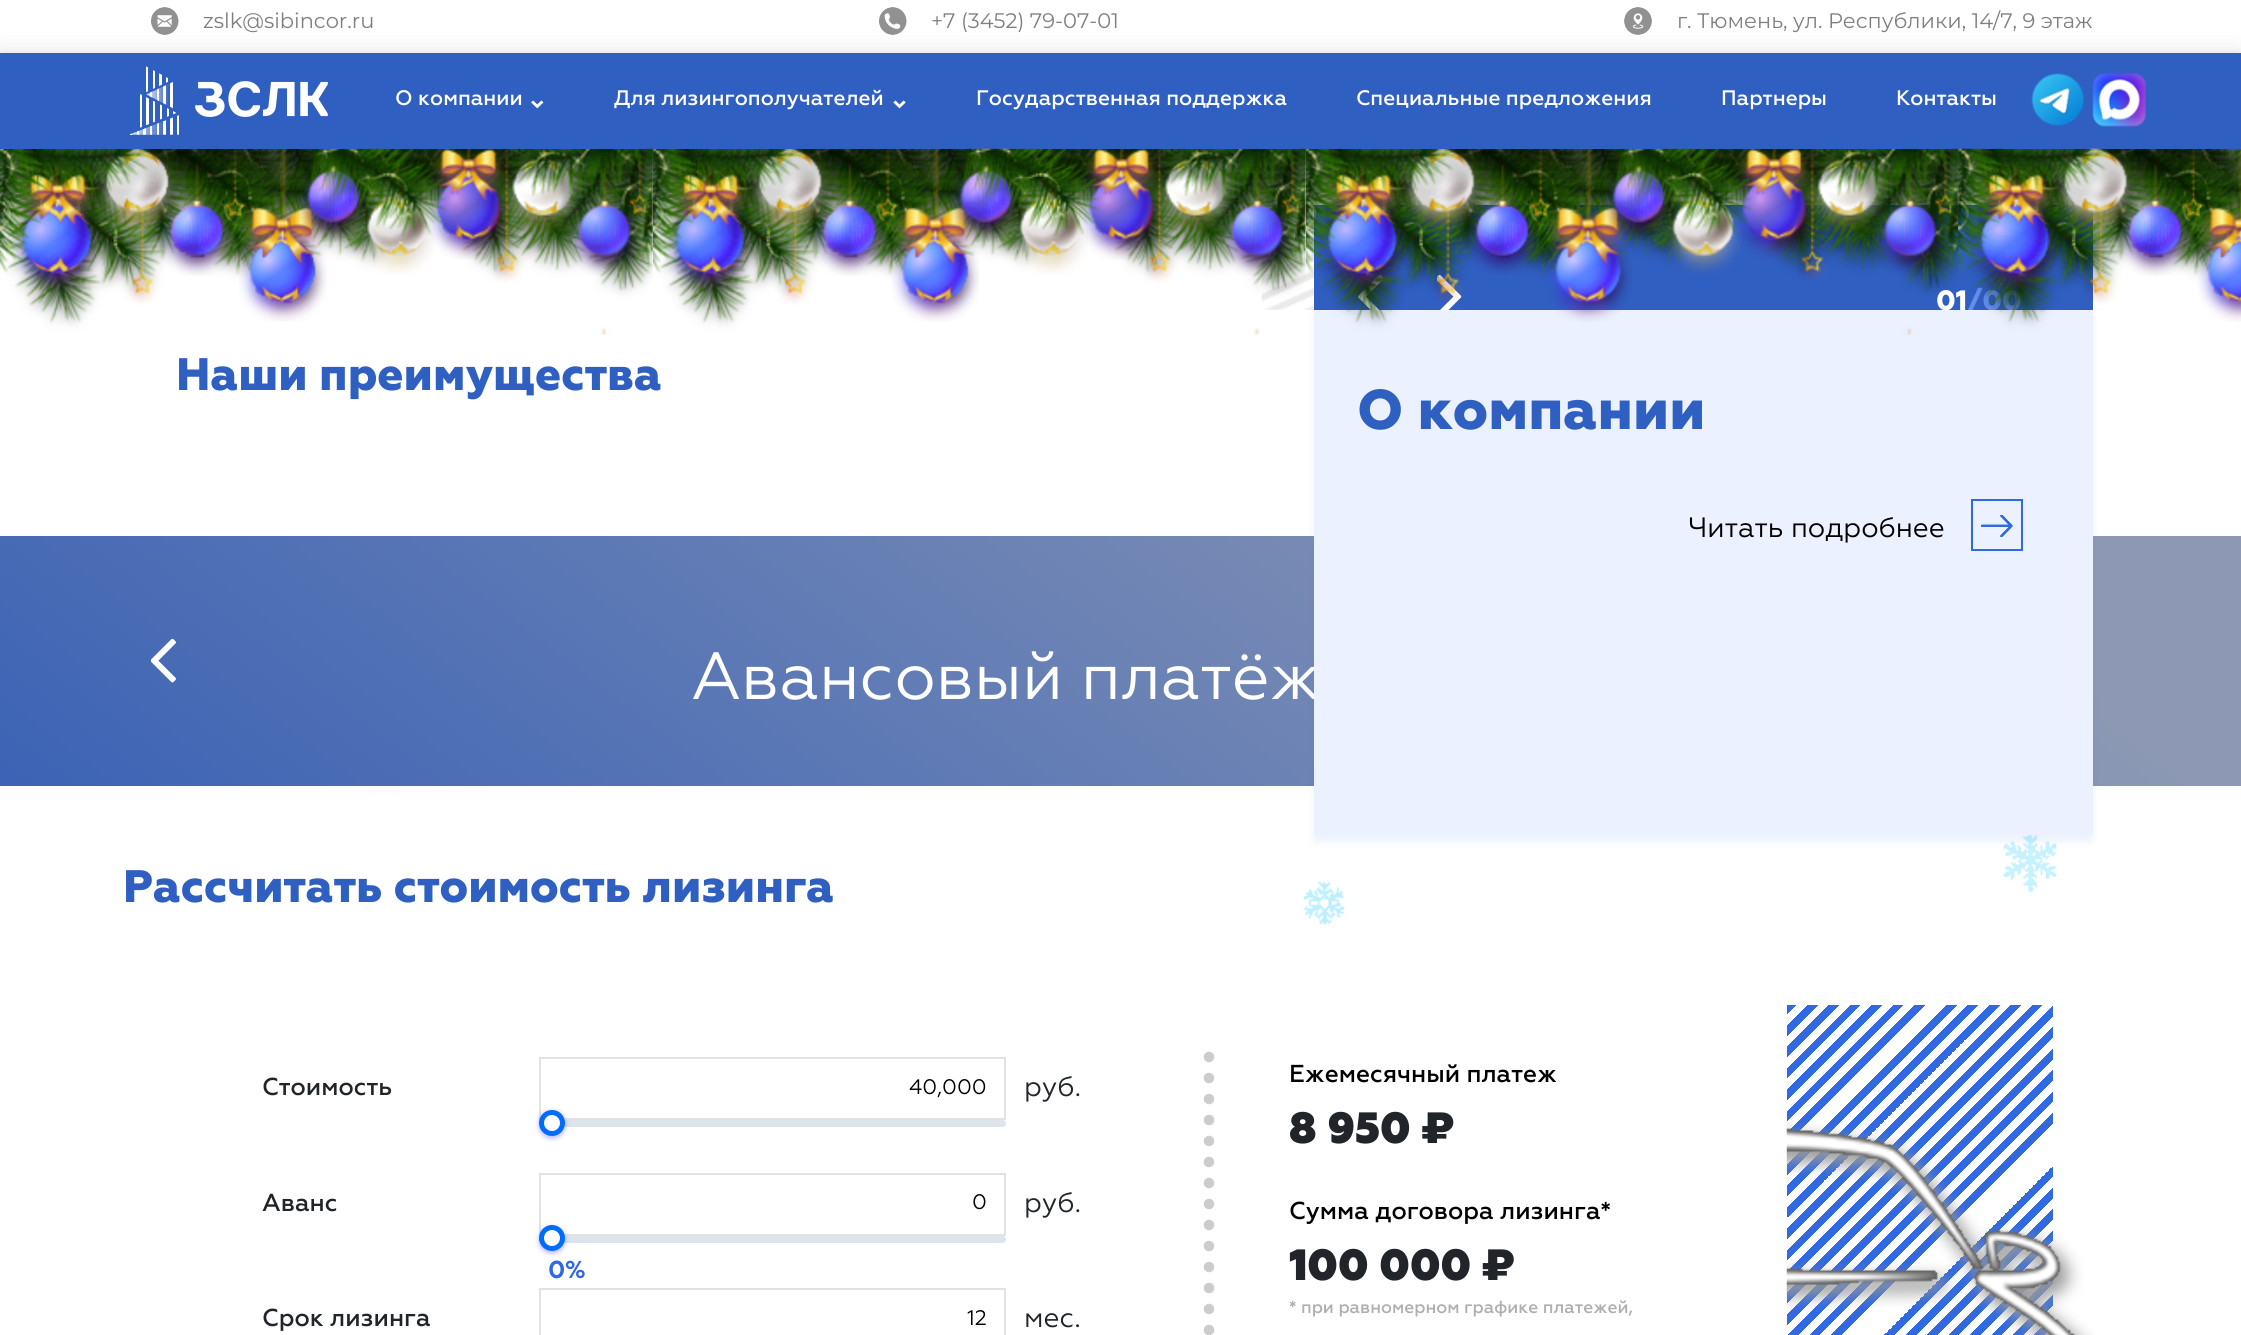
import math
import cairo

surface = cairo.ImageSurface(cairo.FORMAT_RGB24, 2241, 1335)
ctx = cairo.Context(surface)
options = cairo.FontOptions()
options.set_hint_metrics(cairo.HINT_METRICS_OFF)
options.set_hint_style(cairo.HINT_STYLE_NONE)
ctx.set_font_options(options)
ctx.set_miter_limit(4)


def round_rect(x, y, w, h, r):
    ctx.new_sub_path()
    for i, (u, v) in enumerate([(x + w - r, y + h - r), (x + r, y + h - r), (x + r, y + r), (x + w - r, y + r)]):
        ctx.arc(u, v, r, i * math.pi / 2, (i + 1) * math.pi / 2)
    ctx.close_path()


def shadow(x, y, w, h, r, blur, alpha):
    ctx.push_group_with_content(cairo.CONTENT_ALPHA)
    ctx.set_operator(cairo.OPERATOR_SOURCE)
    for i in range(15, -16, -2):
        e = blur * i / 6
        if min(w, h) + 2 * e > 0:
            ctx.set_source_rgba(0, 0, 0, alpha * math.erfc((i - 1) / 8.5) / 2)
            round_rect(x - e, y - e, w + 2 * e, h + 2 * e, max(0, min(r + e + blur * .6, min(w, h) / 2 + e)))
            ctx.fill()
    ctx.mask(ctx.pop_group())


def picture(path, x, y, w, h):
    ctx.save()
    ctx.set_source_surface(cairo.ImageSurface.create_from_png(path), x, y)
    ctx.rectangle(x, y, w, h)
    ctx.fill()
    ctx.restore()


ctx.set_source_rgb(1, 1, 1)
ctx.paint()
picture("img61.png", 993, 149, 42, 20)
ctx.set_source_rgb(0, 0, 0)
shadow(0, 53, 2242, 96, 0, 3.5, 0.09)
shadow(0, 49, 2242, 96, 0, 12, 0.07)
picture("img62.png", 1261, 204, 246, 106)
ctx.set_source_rgb(0.188, 0.373, 0.761)
ctx.rectangle(1314, 205, 779, 105)
ctx.fill()
picture("img63.png", 1358, 275, 26, 35)
picture("img64.png", 1437, 275, 25, 35)
ctx.select_font_face("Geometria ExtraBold")
ctx.set_font_size(28)
ctx.set_source_rgb(1, 1, 1)
ctx.move_to(1936, 310)
ctx.show_text("01")
ctx.set_source_rgb(0.388, 0.561, 0.918)
ctx.move_to(1967, 310)
ctx.show_text("/00")
gradient = cairo.LinearGradient(1594, 41, 622, 1314)
gradient.add_color_stop_rgba(0.13, 0.553, 0.6, 0.706, 1)
gradient.add_color_stop_rgba(1, 0.224, 0.38, 0.71, 1)
ctx.set_source(gradient)
ctx.rectangle(0, 536, 2241, 250)
ctx.fill()
picture("img68.png", 2003, 835, 54, 58)
ctx.set_source_rgb(0.188, 0.412, 0.878)
shadow(1314, 317, 779, 525, 0, 3.5, 0.09)
ctx.select_font_face("Geometria")
ctx.set_font_size(66.5)
ctx.set_source_rgb(1, 1, 1)
ctx.move_to(691, 699)
ctx.show_text("Авансовый платёж")
ctx.set_source_rgb(0.922, 0.945, 1)
ctx.rectangle(1314, 310, 779, 525)
ctx.fill()
picture("img1.png", 0, 149, 2241, 186)
picture("img53.png", 151, 7, 28, 28)
picture("img54.png", 879, 7, 28, 28)
picture("img55.png", 1624, 7, 28, 28)
ctx.set_source_rgb(0.188, 0.373, 0.761)
ctx.rectangle(0, 53, 2241, 96)
ctx.fill()
picture("img56.png", 129, 66, 199, 69)
picture("img57.png", 531, 100, 13, 9)
picture("img58.png", 893, 100, 13, 9)
picture("img59.png", 2031, 73, 53, 53)
picture("img60.png", 2092, 73, 54, 54)
ctx.save()
ctx.rectangle(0, 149, 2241, 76)
ctx.clip()
ctx.set_source_rgb(0, 0, 0)
shadow(0, -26, 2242, 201, 0, 26, 0.75)
ctx.restore()
picture("img5.png", 12, 149, 90, 143)
picture("img2.png", 0, 149, 44, 124)
picture("img8.png", 239, 149, 88, 173)
picture("img9.png", 297, 149, 71, 93)
picture("img14.png", 357, 159, 78, 116)
picture("img10.png", 309, 149, 50, 54)
picture("img11.png", 426, 149, 85, 111)
picture("img3.png", 358, 148, 89, 89)
picture("img12.png", 503, 149, 80, 85)
picture("img16.png", 568, 166, 73, 110)
picture("img15.png", 506, 149, 137, 49)
picture("img4.png", 641, 148, 12, 122)
picture("img7.png", 95, 149, 85, 81)
picture("img6.png", 44, 149, 107, 47)
picture("img13.png", 160, 164, 72, 112)
picture("img21.png", 664, 149, 91, 143)
picture("img17.png", 653, 149, 44, 124)
picture("img24.png", 892, 149, 87, 173)
picture("img25.png", 949, 149, 72, 93)
picture("img29.png", 1010, 159, 78, 116)
picture("img18.png", 962, 148, 50, 55)
picture("img26.png", 1079, 149, 84, 111)
picture("img19.png", 1011, 148, 88, 89)
picture("img27.png", 1156, 149, 79, 85)
picture("img31.png", 1221, 166, 73, 110)
picture("img30.png", 1158, 149, 138, 49)
picture("img20.png", 1295, 148, 11, 122)
picture("img23.png", 748, 149, 84, 81)
picture("img22.png", 697, 149, 106, 47)
picture("img28.png", 813, 164, 72, 112)
picture("img35.png", 1319, 149, 86, 143)
picture("img32.png", 1306, 149, 44, 124)
picture("img38.png", 1546, 149, 86, 173)
picture("img39.png", 1602, 149, 71, 91)
picture("img44.png", 1663, 159, 80, 115)
picture("img40.png", 1615, 149, 50, 54)
picture("img41.png", 1734, 149, 82, 110)
picture("img33.png", 1664, 148, 88, 89)
picture("img42.png", 1808, 149, 80, 86)
picture("img46.png", 1874, 166, 71, 110)
picture("img45.png", 1811, 149, 137, 49)
picture("img34.png", 1947, 148, 12, 122)
picture("img37.png", 1400, 149, 85, 83)
picture("img36.png", 1348, 149, 108, 47)
picture("img43.png", 1466, 164, 71, 111)
picture("img50.png", 1971, 149, 87, 143)
picture("img47.png", 1958, 148, 45, 125)
picture("img48.png", 2053, 148, 85, 83)
picture("img49.png", 2197, 148, 44, 174)
picture("img51.png", 2001, 149, 108, 47)
picture("img52.png", 2119, 164, 72, 112)
ctx.select_font_face("Montserrat")
ctx.set_font_size(21)
ctx.set_source_rgb(0.498, 0.498, 0.498)
ctx.move_to(203, 28)
ctx.show_text("zslk@sibincor.ru")
ctx.move_to(931, 28)
ctx.show_text("+7 (3452) 79-07-01")
ctx.move_to(1677, 28)
ctx.show_text("г. Тюмень, ул. Республики, 14/7, 9 этаж")
ctx.select_font_face("Geometria Medium")
ctx.set_source_rgb(1, 1, 1)
ctx.move_to(395, 105)
ctx.show_text("О компании")
ctx.move_to(614, 105)
ctx.show_text("Для лизингополучателей")
ctx.move_to(976, 105)
ctx.show_text("Государственная поддержка")
ctx.move_to(1356, 105)
ctx.show_text("Специальные предложения")
ctx.move_to(1721, 105)
ctx.show_text("Партнеры")
ctx.move_to(1896, 105)
ctx.show_text("Контакты")
ctx.select_font_face("Geometria ExtraBold")
ctx.set_font_size(45.5)
ctx.set_source_rgb(0.188, 0.373, 0.761)
ctx.move_to(176, 390)
ctx.show_text("Наши преимущества")
ctx.set_font_size(56)
ctx.move_to(1357, 429)
ctx.show_text("О компании")
ctx.select_font_face("Geometria")
ctx.set_font_size(28)
ctx.set_source_rgb(0, 0, 0)
ctx.move_to(1688, 537)
ctx.show_text("Читать подробнее")
ctx.rectangle(1972, 500, 50, 50)
ctx.set_source_rgb(0.188, 0.412, 0.878)
ctx.stroke()
picture("img65.png", 1981, 515, 32, 22)
picture("img66.png", 151, 639, 25, 44)
ctx.select_font_face("Geometria ExtraBold")
ctx.set_font_size(45.5)
ctx.set_source_rgb(0.188, 0.373, 0.761)
ctx.move_to(123, 902)
ctx.show_text("Рассчитать стоимость лизинга")
ctx.select_font_face("Geometria Medium")
ctx.set_font_size(24.5)
ctx.set_source_rgb(0.129, 0.145, 0.161)
ctx.move_to(262, 1095)
ctx.show_text("Стоимость")
ctx.rectangle(540, 1058, 465, 61)
ctx.set_source_rgb(0.886, 0.886, 0.886)
ctx.stroke()
ctx.select_font_face("Geometria")
ctx.set_font_size(21)
ctx.set_source_rgb(0, 0, 0)
ctx.move_to(909, 1094)
ctx.show_text("40,000")
ctx.set_source_rgb(0.871, 0.894, 0.925)
round_rect(539, 1120, 467, 7, 3.5)
ctx.fill()
ctx.set_source_rgb(0, 0, 1)
shadow(539, 1111, 26, 27, 13, 2.5, 0.3)
ctx.set_source_rgb(1, 1, 1)
ctx.arc(552, 1123, 10.5, 0, 2 * math.pi)
ctx.fill_preserve()
ctx.set_source_rgb(0, 0.424, 0.98)
ctx.set_line_width(5)
ctx.stroke()
ctx.set_font_size(28)
ctx.set_source_rgb(0.129, 0.145, 0.161)
ctx.move_to(1024, 1096)
ctx.show_text("руб.")
ctx.select_font_face("Geometria Medium")
ctx.set_font_size(24.5)
ctx.move_to(262, 1211)
ctx.show_text("Аванс")
ctx.rectangle(540, 1174, 465, 61)
ctx.set_source_rgb(0.886, 0.886, 0.886)
ctx.set_line_width(2)
ctx.stroke()
ctx.select_font_face("Geometria")
ctx.set_font_size(21)
ctx.set_source_rgb(0, 0, 0)
ctx.move_to(972, 1209)
ctx.show_text("0")
ctx.set_source_rgb(0.871, 0.894, 0.925)
round_rect(539, 1236, 467, 7, 3.5)
ctx.fill()
ctx.set_source_rgb(0, 0, 1)
shadow(539, 1227, 26, 26, 13, 2.5, 0.3)
ctx.set_source_rgb(1, 1, 1)
ctx.arc(552, 1238, 10.5, 0, 2 * math.pi)
ctx.fill_preserve()
ctx.set_source_rgb(0, 0.424, 0.98)
ctx.set_line_width(5)
ctx.stroke()
ctx.select_font_face("Geometria", cairo.FONT_SLANT_NORMAL, cairo.FONT_WEIGHT_BOLD)
ctx.set_font_size(24.5)
ctx.set_source_rgb(0.188, 0.412, 0.878)
ctx.move_to(548, 1278)
ctx.show_text("0%")
ctx.select_font_face("Geometria")
ctx.set_font_size(28)
ctx.set_source_rgb(0.129, 0.145, 0.161)
ctx.move_to(1024, 1212)
ctx.show_text("руб.")
ctx.select_font_face("Geometria Medium")
ctx.set_font_size(24.5)
ctx.move_to(262, 1326)
ctx.show_text("Срок лизинга")
ctx.rectangle(540, 1289, 465, 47)
ctx.set_source_rgb(0.886, 0.886, 0.886)
ctx.set_line_width(2)
ctx.stroke()
ctx.select_font_face("Geometria")
ctx.set_font_size(21)
ctx.set_source_rgb(0, 0, 0)
ctx.move_to(967, 1325)
ctx.show_text("12")
ctx.set_font_size(28)
ctx.set_source_rgb(0.129, 0.145, 0.161)
ctx.move_to(1024, 1327)
ctx.show_text("мес.")
ctx.new_path()
ctx.move_to(1209, 1057)
ctx.line_to(1209, 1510)
ctx.set_source_rgb(0.8, 0.8, 0.8)
ctx.set_line_width(10.5)
ctx.set_line_cap(cairo.LINE_CAP_ROUND)
ctx.set_dash([0, 21])
ctx.stroke()
ctx.select_font_face("Geometria Medium")
ctx.set_font_size(24.5)
ctx.set_source_rgb(0, 0, 0)
ctx.move_to(1289, 1082)
ctx.show_text("Ежемесячный платеж")
ctx.select_font_face("Geometria Black")
ctx.set_font_size(43.75)
ctx.set_source_rgb(0.129, 0.145, 0.161)
ctx.move_to(1289, 1143)
ctx.show_text("8 950 ₽")
ctx.select_font_face("Geometria Medium")
ctx.set_font_size(24.5)
ctx.set_source_rgb(0, 0, 0)
ctx.move_to(1289, 1219)
ctx.show_text("Сумма договора лизинга*")
ctx.select_font_face("Geometria Black")
ctx.set_font_size(43.75)
ctx.set_source_rgb(0.129, 0.145, 0.161)
ctx.move_to(1289, 1280)
ctx.show_text("100 000 ₽")
ctx.select_font_face("Geometria Medium")
ctx.set_font_size(17.5)
ctx.set_source_rgb(0.686, 0.686, 0.686)
ctx.move_to(1289, 1313)
ctx.show_text("* при равномерном графике платежей,")
gradient = cairo.LinearGradient(1654, 1137, 2189, 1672)
gradient.add_color_stop_rgba(0, 0.188, 0.412, 0.878, 1)
gradient.add_color_stop_rgba(0.01, 0.188, 0.412, 0.878, 1)
gradient.add_color_stop_rgba(0.01, 1, 1, 1, 1)
gradient.add_color_stop_rgba(0.02, 1, 1, 1, 1)
gradient.add_color_stop_rgba(0.02, 0.188, 0.412, 0.878, 1)
gradient.add_color_stop_rgba(0.03, 0.188, 0.412, 0.878, 1)
gradient.add_color_stop_rgba(0.03, 1, 1, 1, 1)
gradient.add_color_stop_rgba(0.04, 1, 1, 1, 1)
gradient.add_color_stop_rgba(0.04, 0.188, 0.412, 0.878, 1)
gradient.add_color_stop_rgba(0.05, 0.188, 0.412, 0.878, 1)
gradient.add_color_stop_rgba(0.05, 1, 1, 1, 1)
gradient.add_color_stop_rgba(0.06, 1, 1, 1, 1)
gradient.add_color_stop_rgba(0.06, 0.188, 0.412, 0.878, 1)
gradient.add_color_stop_rgba(0.07, 0.188, 0.412, 0.878, 1)
gradient.add_color_stop_rgba(0.07, 1, 1, 1, 1)
gradient.add_color_stop_rgba(0.08, 1, 1, 1, 1)
gradient.add_color_stop_rgba(0.08, 0.188, 0.412, 0.878, 1)
gradient.add_color_stop_rgba(0.09, 0.188, 0.412, 0.878, 1)
gradient.add_color_stop_rgba(0.09, 1, 1, 1, 1)
gradient.add_color_stop_rgba(0.1, 1, 1, 1, 1)
gradient.add_color_stop_rgba(0.1, 0.188, 0.412, 0.878, 1)
gradient.add_color_stop_rgba(0.11, 0.188, 0.412, 0.878, 1)
gradient.add_color_stop_rgba(0.11, 1, 1, 1, 1)
gradient.add_color_stop_rgba(0.12, 1, 1, 1, 1)
gradient.add_color_stop_rgba(0.12, 0.188, 0.412, 0.878, 1)
gradient.add_color_stop_rgba(0.13, 0.188, 0.412, 0.878, 1)
gradient.add_color_stop_rgba(0.13, 1, 1, 1, 1)
gradient.add_color_stop_rgba(0.15, 1, 1, 1, 1)
gradient.add_color_stop_rgba(0.15, 0.188, 0.412, 0.878, 1)
gradient.add_color_stop_rgba(0.16, 0.188, 0.412, 0.878, 1)
gradient.add_color_stop_rgba(0.16, 1, 1, 1, 1)
gradient.add_color_stop_rgba(0.17, 1, 1, 1, 1)
gradient.add_color_stop_rgba(0.17, 0.188, 0.412, 0.878, 1)
gradient.add_color_stop_rgba(0.18, 0.188, 0.412, 0.878, 1)
gradient.add_color_stop_rgba(0.18, 1, 1, 1, 1)
gradient.add_color_stop_rgba(0.19, 1, 1, 1, 1)
gradient.add_color_stop_rgba(0.19, 0.188, 0.412, 0.878, 1)
gradient.add_color_stop_rgba(0.2, 0.188, 0.412, 0.878, 1)
gradient.add_color_stop_rgba(0.2, 1, 1, 1, 1)
gradient.add_color_stop_rgba(0.21, 1, 1, 1, 1)
gradient.add_color_stop_rgba(0.21, 0.188, 0.412, 0.878, 1)
gradient.add_color_stop_rgba(0.22, 0.188, 0.412, 0.878, 1)
gradient.add_color_stop_rgba(0.22, 1, 1, 1, 1)
gradient.add_color_stop_rgba(0.23, 1, 1, 1, 1)
gradient.add_color_stop_rgba(0.23, 0.188, 0.412, 0.878, 1)
gradient.add_color_stop_rgba(0.24, 0.188, 0.412, 0.878, 1)
gradient.add_color_stop_rgba(0.24, 1, 1, 1, 1)
gradient.add_color_stop_rgba(0.25, 1, 1, 1, 1)
gradient.add_color_stop_rgba(0.25, 0.188, 0.412, 0.878, 1)
gradient.add_color_stop_rgba(0.26, 0.188, 0.412, 0.878, 1)
gradient.add_color_stop_rgba(0.26, 1, 1, 1, 1)
gradient.add_color_stop_rgba(0.27, 1, 1, 1, 1)
gradient.add_color_stop_rgba(0.27, 0.188, 0.412, 0.878, 1)
gradient.add_color_stop_rgba(0.28, 0.188, 0.412, 0.878, 1)
gradient.add_color_stop_rgba(0.28, 1, 1, 1, 1)
gradient.add_color_stop_rgba(0.29, 1, 1, 1, 1)
gradient.add_color_stop_rgba(0.29, 0.188, 0.412, 0.878, 1)
gradient.add_color_stop_rgba(0.3, 0.188, 0.412, 0.878, 1)
gradient.add_color_stop_rgba(0.3, 1, 1, 1, 1)
gradient.add_color_stop_rgba(0.31, 1, 1, 1, 1)
gradient.add_color_stop_rgba(0.31, 0.188, 0.412, 0.878, 1)
gradient.add_color_stop_rgba(0.32, 0.188, 0.412, 0.878, 1)
gradient.add_color_stop_rgba(0.32, 1, 1, 1, 1)
gradient.add_color_stop_rgba(0.33, 1, 1, 1, 1)
gradient.add_color_stop_rgba(0.33, 0.188, 0.412, 0.878, 1)
gradient.add_color_stop_rgba(0.34, 0.188, 0.412, 0.878, 1)
gradient.add_color_stop_rgba(0.34, 1, 1, 1, 1)
gradient.add_color_stop_rgba(0.35, 1, 1, 1, 1)
gradient.add_color_stop_rgba(0.35, 0.188, 0.412, 0.878, 1)
gradient.add_color_stop_rgba(0.36, 0.188, 0.412, 0.878, 1)
gradient.add_color_stop_rgba(0.36, 1, 1, 1, 1)
gradient.add_color_stop_rgba(0.38, 1, 1, 1, 1)
gradient.add_color_stop_rgba(0.38, 0.188, 0.412, 0.878, 1)
gradient.add_color_stop_rgba(0.38, 1, 1, 1, 1)
gradient.add_color_stop_rgba(0.4, 1, 1, 1, 1)
gradient.add_color_stop_rgba(0.4, 0.188, 0.412, 0.878, 1)
gradient.add_color_stop_rgba(0.41, 0.188, 0.412, 0.878, 1)
gradient.add_color_stop_rgba(0.41, 1, 1, 1, 1)
gradient.add_color_stop_rgba(0.42, 1, 1, 1, 1)
gradient.add_color_stop_rgba(0.42, 0.188, 0.412, 0.878, 1)
gradient.add_color_stop_rgba(0.43, 0.188, 0.412, 0.878, 1)
gradient.add_color_stop_rgba(0.43, 1, 1, 1, 1)
gradient.add_color_stop_rgba(0.44, 1, 1, 1, 1)
gradient.add_color_stop_rgba(0.44, 0.188, 0.412, 0.878, 1)
gradient.add_color_stop_rgba(0.45, 0.188, 0.412, 0.878, 1)
gradient.add_color_stop_rgba(0.45, 1, 1, 1, 1)
gradient.add_color_stop_rgba(0.46, 1, 1, 1, 1)
gradient.add_color_stop_rgba(0.46, 0.188, 0.412, 0.878, 1)
gradient.add_color_stop_rgba(0.47, 0.188, 0.412, 0.878, 1)
gradient.add_color_stop_rgba(0.47, 1, 1, 1, 1)
gradient.add_color_stop_rgba(0.48, 1, 1, 1, 1)
gradient.add_color_stop_rgba(0.48, 0.188, 0.412, 0.878, 1)
gradient.add_color_stop_rgba(0.49, 0.188, 0.412, 0.878, 1)
gradient.add_color_stop_rgba(0.49, 1, 1, 1, 1)
gradient.add_color_stop_rgba(0.5, 1, 1, 1, 1)
gradient.add_color_stop_rgba(0.5, 0.188, 0.412, 0.878, 1)
gradient.add_color_stop_rgba(0.51, 0.188, 0.412, 0.878, 1)
gradient.add_color_stop_rgba(0.51, 1, 1, 1, 1)
gradient.add_color_stop_rgba(0.52, 1, 1, 1, 1)
gradient.add_color_stop_rgba(0.52, 0.188, 0.412, 0.878, 1)
gradient.add_color_stop_rgba(0.53, 0.188, 0.412, 0.878, 1)
gradient.add_color_stop_rgba(0.53, 1, 1, 1, 1)
gradient.add_color_stop_rgba(0.54, 1, 1, 1, 1)
gradient.add_color_stop_rgba(0.54, 0.188, 0.412, 0.878, 1)
gradient.add_color_stop_rgba(0.55, 0.188, 0.412, 0.878, 1)
gradient.add_color_stop_rgba(0.55, 1, 1, 1, 1)
gradient.add_color_stop_rgba(0.56, 1, 1, 1, 1)
gradient.add_color_stop_rgba(0.56, 0.188, 0.412, 0.878, 1)
gradient.add_color_stop_rgba(0.57, 0.188, 0.412, 0.878, 1)
gradient.add_color_stop_rgba(0.57, 1, 1, 1, 1)
gradient.add_color_stop_rgba(0.58, 1, 1, 1, 1)
gradient.add_color_stop_rgba(0.58, 0.188, 0.412, 0.878, 1)
gradient.add_color_stop_rgba(0.59, 0.188, 0.412, 0.878, 1)
gradient.add_color_stop_rgba(0.59, 1, 1, 1, 1)
gradient.add_color_stop_rgba(0.6, 1, 1, 1, 1)
gradient.add_color_stop_rgba(0.6, 0.188, 0.412, 0.878, 1)
gradient.add_color_stop_rgba(0.61, 0.188, 0.412, 0.878, 1)
gradient.add_color_stop_rgba(0.61, 1, 1, 1, 1)
gradient.add_color_stop_rgba(0.62, 1, 1, 1, 1)
gradient.add_color_stop_rgba(0.62, 0.188, 0.412, 0.878, 1)
gradient.add_color_stop_rgba(0.63, 0.188, 0.412, 0.878, 1)
gradient.add_color_stop_rgba(0.63, 1, 1, 1, 1)
gradient.add_color_stop_rgba(0.65, 1, 1, 1, 1)
gradient.add_color_stop_rgba(0.65, 0.188, 0.412, 0.878, 1)
gradient.add_color_stop_rgba(0.66, 0.188, 0.412, 0.878, 1)
gradient.add_color_stop_rgba(0.66, 1, 1, 1, 1)
gradient.add_color_stop_rgba(0.67, 1, 1, 1, 1)
gradient.add_color_stop_rgba(0.67, 0.188, 0.412, 0.878, 1)
gradient.add_color_stop_rgba(0.68, 0.188, 0.412, 0.878, 1)
gradient.add_color_stop_rgba(0.68, 1, 1, 1, 1)
gradient.add_color_stop_rgba(0.69, 1, 1, 1, 1)
gradient.add_color_stop_rgba(0.69, 0.188, 0.412, 0.878, 1)
gradient.add_color_stop_rgba(0.7, 0.188, 0.412, 0.878, 1)
gradient.add_color_stop_rgba(0.7, 1, 1, 1, 1)
gradient.add_color_stop_rgba(0.71, 1, 1, 1, 1)
gradient.add_color_stop_rgba(0.71, 0.188, 0.412, 0.878, 1)
gradient.add_color_stop_rgba(0.72, 0.188, 0.412, 0.878, 1)
gradient.add_color_stop_rgba(0.72, 1, 1, 1, 1)
gradient.add_color_stop_rgba(0.73, 1, 1, 1, 1)
gradient.add_color_stop_rgba(0.73, 0.188, 0.412, 0.878, 1)
gradient.add_color_stop_rgba(0.74, 0.188, 0.412, 0.878, 1)
gradient.add_color_stop_rgba(0.74, 1, 1, 1, 1)
gradient.add_color_stop_rgba(0.75, 1, 1, 1, 1)
gradient.add_color_stop_rgba(0.75, 0.188, 0.412, 0.878, 1)
gradient.add_color_stop_rgba(0.76, 0.188, 0.412, 0.878, 1)
gradient.add_color_stop_rgba(0.76, 1, 1, 1, 1)
gradient.add_color_stop_rgba(0.77, 1, 1, 1, 1)
gradient.add_color_stop_rgba(0.77, 0.188, 0.412, 0.878, 1)
gradient.add_color_stop_rgba(0.78, 0.188, 0.412, 0.878, 1)
gradient.add_color_stop_rgba(0.78, 1, 1, 1, 1)
gradient.add_color_stop_rgba(0.79, 1, 1, 1, 1)
gradient.add_color_stop_rgba(0.79, 0.188, 0.412, 0.878, 1)
gradient.add_color_stop_rgba(0.8, 0.188, 0.412, 0.878, 1)
gradient.add_color_stop_rgba(0.8, 1, 1, 1, 1)
gradient.add_color_stop_rgba(0.81, 1, 1, 1, 1)
gradient.add_color_stop_rgba(0.81, 0.188, 0.412, 0.878, 1)
gradient.add_color_stop_rgba(0.82, 0.188, 0.412, 0.878, 1)
gradient.add_color_stop_rgba(0.82, 1, 1, 1, 1)
gradient.add_color_stop_rgba(0.83, 1, 1, 1, 1)
gradient.add_color_stop_rgba(0.83, 0.188, 0.412, 0.878, 1)
gradient.add_color_stop_rgba(0.84, 0.188, 0.412, 0.878, 1)
gradient.add_color_stop_rgba(0.84, 1, 1, 1, 1)
gradient.add_color_stop_rgba(0.85, 1, 1, 1, 1)
gradient.add_color_stop_rgba(0.85, 0.188, 0.412, 0.878, 1)
gradient.add_color_stop_rgba(0.86, 0.188, 0.412, 0.878, 1)
gradient.add_color_stop_rgba(0.86, 1, 1, 1, 1)
gradient.add_color_stop_rgba(0.88, 1, 1, 1, 1)
gradient.add_color_stop_rgba(0.88, 0.188, 0.412, 0.878, 1)
gradient.add_color_stop_rgba(0.88, 1, 1, 1, 1)
gradient.add_color_stop_rgba(0.9, 1, 1, 1, 1)
gradient.add_color_stop_rgba(0.9, 0.188, 0.412, 0.878, 1)
gradient.add_color_stop_rgba(0.91, 0.188, 0.412, 0.878, 1)
gradient.add_color_stop_rgba(0.91, 1, 1, 1, 1)
gradient.add_color_stop_rgba(0.92, 1, 1, 1, 1)
gradient.add_color_stop_rgba(0.92, 0.188, 0.412, 0.878, 1)
gradient.add_color_stop_rgba(0.93, 0.188, 0.412, 0.878, 1)
gradient.add_color_stop_rgba(0.93, 1, 1, 1, 1)
gradient.add_color_stop_rgba(0.94, 1, 1, 1, 1)
gradient.add_color_stop_rgba(0.94, 0.188, 0.412, 0.878, 1)
gradient.add_color_stop_rgba(0.95, 0.188, 0.412, 0.878, 1)
gradient.add_color_stop_rgba(0.95, 1, 1, 1, 1)
gradient.add_color_stop_rgba(0.96, 1, 1, 1, 1)
gradient.add_color_stop_rgba(0.96, 0.188, 0.412, 0.878, 1)
gradient.add_color_stop_rgba(0.97, 0.188, 0.412, 0.878, 1)
gradient.add_color_stop_rgba(0.97, 1, 1, 1, 1)
gradient.add_color_stop_rgba(0.98, 1, 1, 1, 1)
gradient.add_color_stop_rgba(0.98, 0.188, 0.412, 0.878, 1)
gradient.add_color_stop_rgba(0.99, 0.188, 0.412, 0.878, 1)
gradient.add_color_stop_rgba(0.99, 1, 1, 1, 1)
gradient.add_color_stop_rgba(1, 1, 1, 1, 1)
ctx.set_source(gradient)
ctx.rectangle(1787, 1005, 266, 330)
ctx.fill()
picture("img67.png", 1786, 1122, 308, 213)
picture("img69.png", 1303, 881, 42, 44)
surface.write_to_png("page.png")
